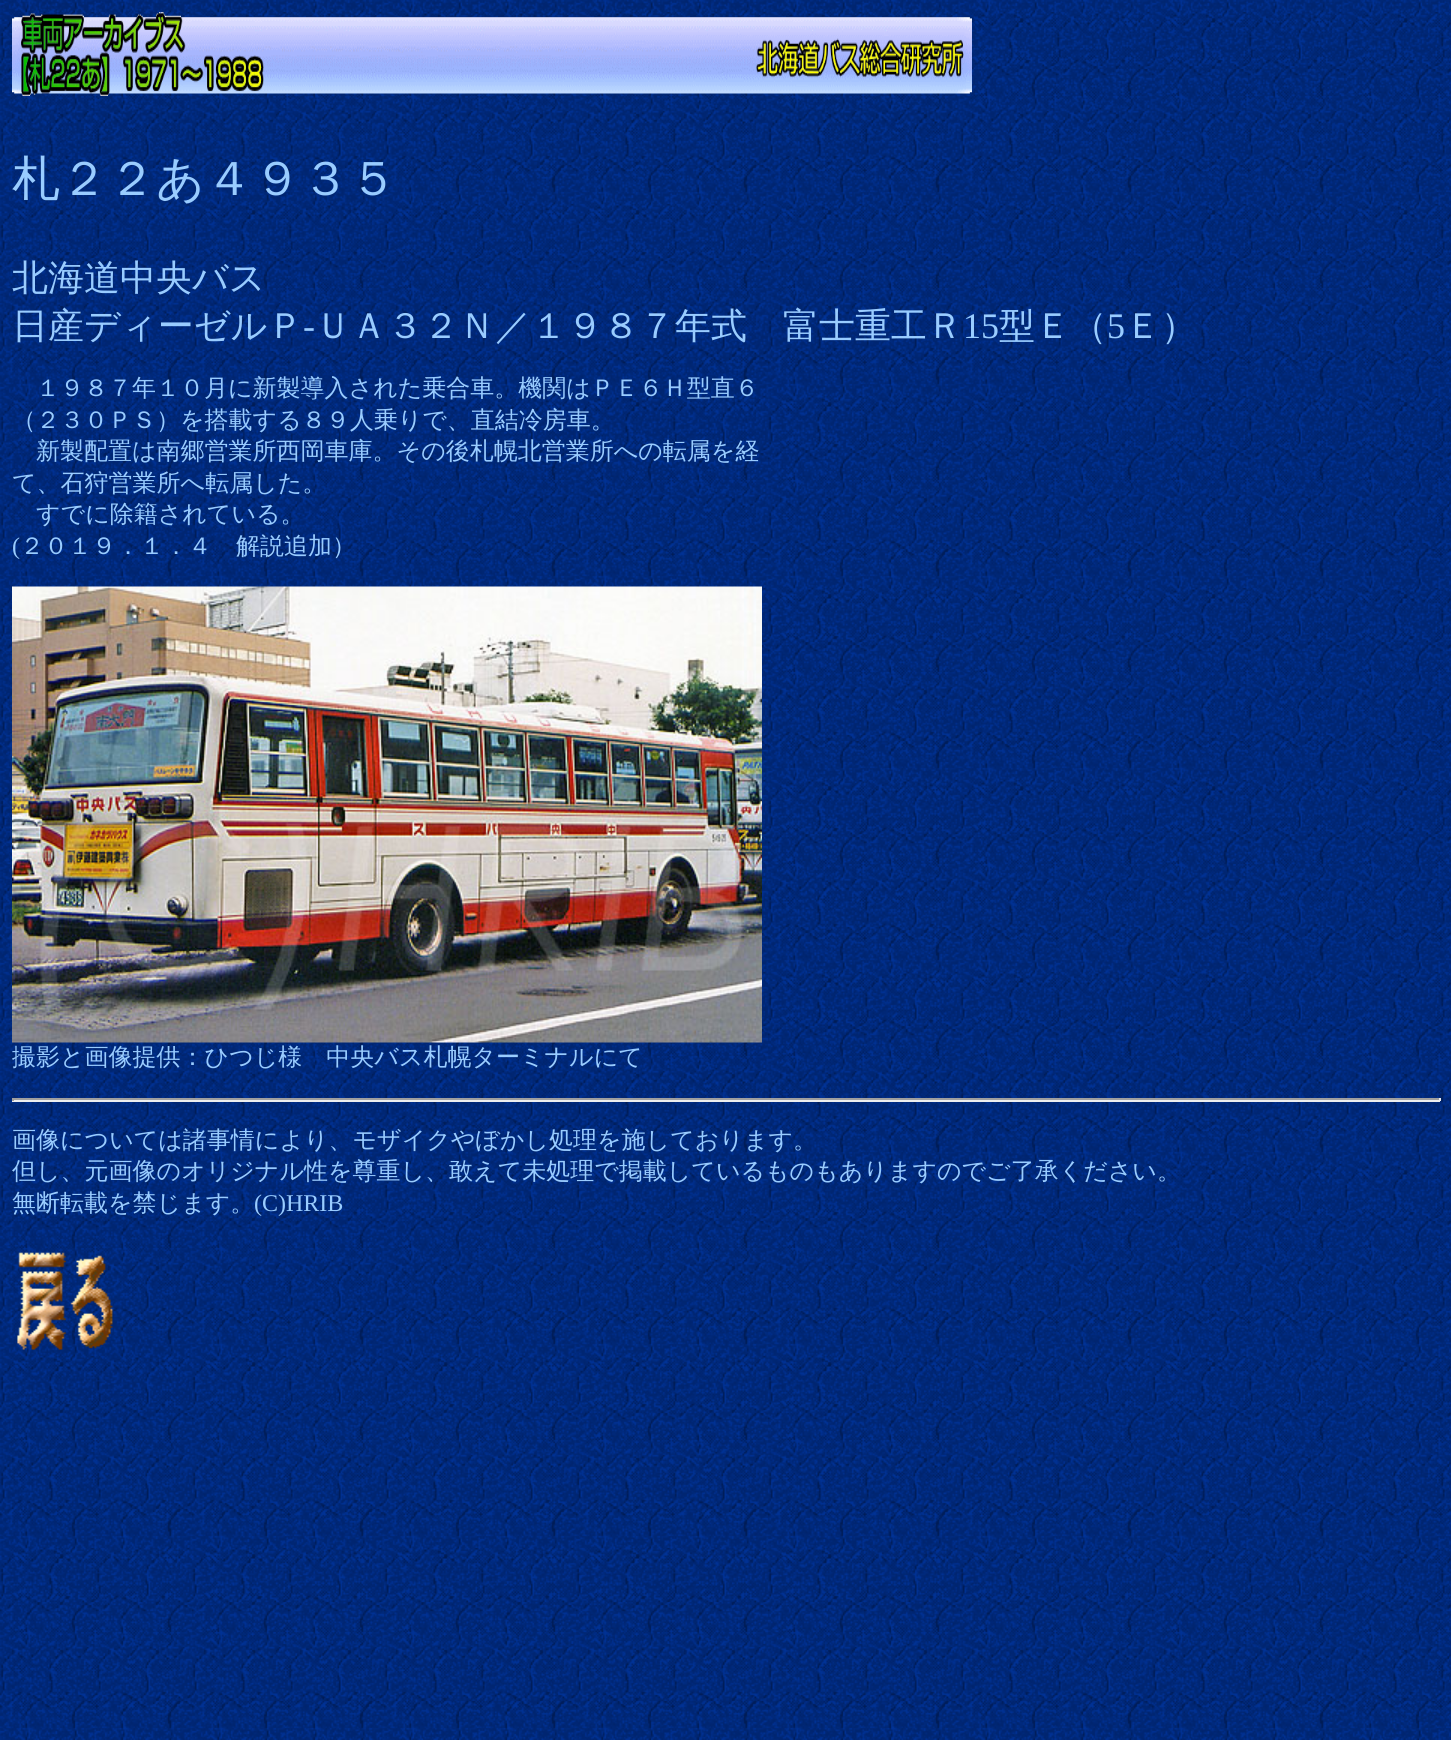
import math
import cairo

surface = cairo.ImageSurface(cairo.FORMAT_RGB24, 1451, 1740)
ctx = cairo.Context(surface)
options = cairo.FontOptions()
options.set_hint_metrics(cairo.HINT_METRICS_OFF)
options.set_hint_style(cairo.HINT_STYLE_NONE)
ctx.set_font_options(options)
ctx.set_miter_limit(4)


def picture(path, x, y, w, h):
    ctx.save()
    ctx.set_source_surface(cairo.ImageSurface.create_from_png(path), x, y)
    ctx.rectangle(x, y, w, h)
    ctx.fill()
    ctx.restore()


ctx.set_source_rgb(1, 1, 1)
ctx.paint()
picture("img1.png", 0, 0, 1451, 1740)
picture("img2.png", 12, 12, 960, 84)
ctx.select_font_face("WenQuanYi Zen Hei Medium")
ctx.set_font_size(48)
ctx.set_source_rgb(0.6, 0.8, 1)
ctx.move_to(12, 195)
ctx.show_text("札２２あ４９３５")
ctx.set_font_size(36)
ctx.move_to(12, 290)
ctx.show_text("北海道中央バス")
ctx.move_to(12, 338)
ctx.show_text("日産ディーゼルＰ")
ctx.select_font_face("Liberation Serif")
ctx.move_to(303, 338)
ctx.show_text("-")
ctx.select_font_face("WenQuanYi Zen Hei Medium")
ctx.move_to(315, 338)
ctx.show_text("ＵＡ３２Ｎ／１９８７年式　富士重工Ｒ")
ctx.select_font_face("Liberation Serif")
ctx.move_to(963, 338)
ctx.show_text("15")
ctx.select_font_face("WenQuanYi Zen Hei Medium")
ctx.move_to(999, 338)
ctx.show_text("型Ｅ（")
ctx.select_font_face("Liberation Serif")
ctx.move_to(1107, 338)
ctx.show_text("5")
ctx.select_font_face("WenQuanYi Zen Hei Medium")
ctx.move_to(1125, 338)
ctx.show_text("Ｅ）")
ctx.set_font_size(24)
ctx.move_to(36, 396)
ctx.show_text("１９８７年１０月に新製導入された乗合車。機関はＰＥ６Ｈ型直６")
ctx.move_to(12, 428)
ctx.show_text("（２３０ＰＳ）を搭載する８９人乗りで、直結冷房車。")
ctx.move_to(36, 459)
ctx.show_text("新製配置は南郷営業所西岡車庫。その後札幌北営業所への転属を経")
ctx.move_to(12, 491)
ctx.show_text("て、石狩営業所へ転属した。")
ctx.move_to(36, 522)
ctx.show_text("すでに除籍されている。")
ctx.select_font_face("Liberation Serif")
ctx.move_to(12, 554)
ctx.show_text("(")
ctx.select_font_face("WenQuanYi Zen Hei Medium")
ctx.move_to(20, 554)
ctx.show_text("２０１９．１．４　解説追加）")
picture("img3.png", 12, 586, 750, 457)
ctx.move_to(12, 1065)
ctx.show_text("撮影と画像提供：ひつじ様　中央バス札幌ターミナルにて")
ctx.set_source_rgb(0.624, 0.624, 0.624)
ctx.rectangle(12, 1098, 1428, 2)
ctx.fill()
ctx.set_source_rgb(0.933, 0.933, 0.933)
ctx.rectangle(1439, 1098, 2, 3)
ctx.fill()
ctx.rectangle(12, 1100, 1428, 2)
ctx.fill()
ctx.set_source_rgb(0.624, 0.624, 0.624)
ctx.rectangle(12, 1098, 2, 3)
ctx.fill()
ctx.set_source_rgb(0.6, 0.8, 1)
ctx.move_to(12, 1148)
ctx.show_text("画像については諸事情により、モザイクやぼかし処理を施しております。")
ctx.move_to(12, 1179)
ctx.show_text("但し、元画像のオリジナル性を尊重し、敢えて未処理で掲載しているものもありますのでご了承ください。")
ctx.move_to(12, 1211)
ctx.show_text("無断転載を禁じます。")
ctx.select_font_face("Liberation Serif")
ctx.move_to(254, 1211)
ctx.show_text("(C)HRIB")
picture("img4.png", 17, 1252, 96, 98)
surface.write_to_png("page.png")
